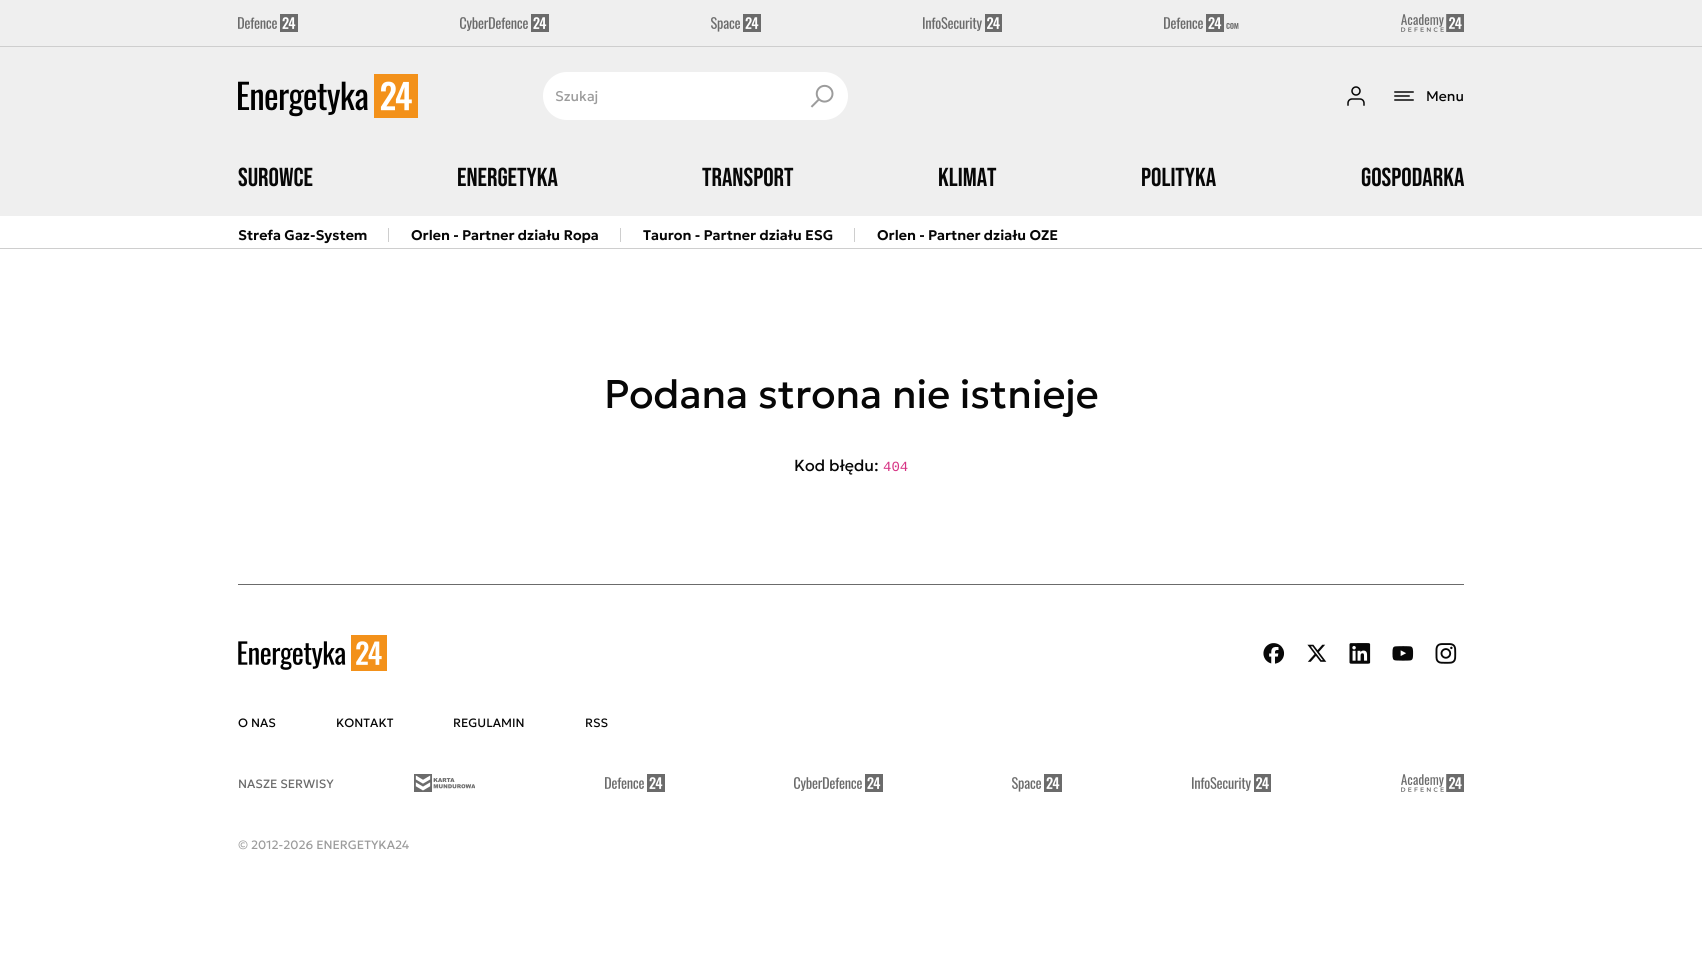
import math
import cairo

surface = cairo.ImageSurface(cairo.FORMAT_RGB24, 1702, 973)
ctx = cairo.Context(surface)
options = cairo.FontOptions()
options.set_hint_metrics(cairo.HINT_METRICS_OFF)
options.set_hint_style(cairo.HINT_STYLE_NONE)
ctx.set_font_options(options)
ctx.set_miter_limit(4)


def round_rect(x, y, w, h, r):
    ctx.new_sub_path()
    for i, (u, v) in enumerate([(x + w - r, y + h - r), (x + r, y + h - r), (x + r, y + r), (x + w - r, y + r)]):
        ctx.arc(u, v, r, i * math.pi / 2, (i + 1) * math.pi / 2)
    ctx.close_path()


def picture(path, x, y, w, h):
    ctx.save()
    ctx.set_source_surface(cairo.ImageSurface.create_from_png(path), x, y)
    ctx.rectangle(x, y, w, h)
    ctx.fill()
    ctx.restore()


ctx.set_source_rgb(1, 1, 1)
ctx.paint()
ctx.set_source_rgb(0.937, 0.937, 0.937)
ctx.rectangle(0, 0, 1702, 46)
ctx.fill()
ctx.set_source_rgb(0.808, 0.808, 0.808)
ctx.rectangle(0, 46, 1702, 1)
ctx.fill()
picture("img1.png", 238, 14, 60, 18)
picture("img2.png", 460, 14, 89, 18)
picture("img3.png", 711, 14, 50, 18)
picture("img4.png", 923, 14, 79, 18)
picture("img5.png", 1164, 14, 75, 18)
picture("img6.png", 1401, 14, 63, 18)
ctx.set_source_rgb(0.937, 0.937, 0.937)
ctx.rectangle(0, 47, 1702, 169)
ctx.fill()
picture("img7.png", 238, 74, 180, 44)
ctx.set_source_rgb(1, 1, 1)
round_rect(543, 72, 305, 48, 24)
ctx.fill()
ctx.select_font_face("Geologica")
ctx.set_font_size(14)
ctx.set_source_rgb(0.612, 0.612, 0.612)
ctx.move_to(555, 101)
ctx.show_text("Szukaj")
picture("img8.png", 810, 84, 24, 24)
picture("img9.png", 1347, 86, 18, 20)
picture("img10.png", 1394, 91, 20, 10)
ctx.set_source_rgb(0.031, 0.031, 0.031)
ctx.move_to(1426, 101)
ctx.show_text("Menu")
ctx.select_font_face("Bebas Neue")
ctx.set_font_size(26)
ctx.move_to(238, 186)
ctx.show_text("Surowce")
ctx.move_to(457, 186)
ctx.show_text("Energetyka")
ctx.move_to(702, 186)
ctx.show_text("Transport")
ctx.move_to(938, 186)
ctx.show_text("Klimat")
ctx.move_to(1141, 186)
ctx.show_text("Polityka")
ctx.move_to(1361, 186)
ctx.show_text("Gospodarka")
ctx.set_source_rgb(0.808, 0.808, 0.808)
ctx.rectangle(0, 248, 1702, 1)
ctx.fill()
ctx.select_font_face("Geologica SemiBold")
ctx.set_font_size(14)
ctx.set_source_rgb(0.031, 0.031, 0.031)
ctx.move_to(238, 240)
ctx.show_text("Strefa Gaz-System")
ctx.set_source_rgb(0.808, 0.808, 0.808)
ctx.rectangle(388, 228, 1, 14)
ctx.fill()
ctx.set_source_rgb(0.031, 0.031, 0.031)
ctx.move_to(411, 240)
ctx.show_text("Orlen - Partner działu Ropa")
ctx.set_source_rgb(0.808, 0.808, 0.808)
ctx.rectangle(620, 228, 1, 14)
ctx.fill()
ctx.set_source_rgb(0.031, 0.031, 0.031)
ctx.move_to(643, 240)
ctx.show_text("Tauron - Partner działu ESG")
ctx.set_source_rgb(0.808, 0.808, 0.808)
ctx.rectangle(854, 228, 1, 14)
ctx.fill()
ctx.set_source_rgb(0.031, 0.031, 0.031)
ctx.move_to(877, 240)
ctx.show_text("Orlen - Partner działu OZE")
ctx.select_font_face("Geologica")
ctx.set_font_size(40)
ctx.move_to(604, 408)
ctx.show_text("Podana strona nie istnieje")
ctx.set_font_size(16)
ctx.move_to(794, 471)
ctx.show_text("Kod błędu:")
ctx.select_font_face("Liberation Mono")
ctx.set_font_size(14)
ctx.set_source_rgb(0.839, 0.2, 0.518)
ctx.move_to(883, 471)
ctx.show_text("404")
ctx.set_source_rgb(0.42, 0.42, 0.42)
ctx.rectangle(238, 584, 1226, 1)
ctx.fill()
picture("img11.png", 238, 635, 149, 36)
picture("img12.png", 1263, 643, 22, 21)
picture("img13.png", 1307, 644, 20, 18)
picture("img14.png", 1349, 643, 22, 21)
picture("img15.png", 1392, 646, 22, 15)
picture("img16.png", 1435, 643, 22, 21)
ctx.select_font_face("Geologica")
ctx.set_font_size(12)
ctx.set_source_rgb(0.031, 0.031, 0.031)
ctx.move_to(238, 727)
ctx.show_text("O NAS")
ctx.move_to(336, 727)
ctx.show_text("KONTAKT")
ctx.move_to(453, 727)
ctx.show_text("REGULAMIN")
ctx.move_to(585, 727)
ctx.show_text("RSS")
ctx.set_source_rgb(0.42, 0.42, 0.42)
ctx.move_to(238, 788)
ctx.show_text("NASZE SERWISY")
picture("img17.png", 414, 774, 61, 18)
picture("img18.png", 605, 774, 60, 18)
picture("img19.png", 794, 774, 89, 18)
picture("img20.png", 1012, 774, 50, 18)
picture("img21.png", 1192, 774, 79, 18)
picture("img22.png", 1401, 774, 63, 18)
ctx.set_source_rgb(0.612, 0.612, 0.612)
ctx.move_to(238, 849)
ctx.show_text("© 2012-2026 ENERGETYKA24")
surface.write_to_png("page.png")
